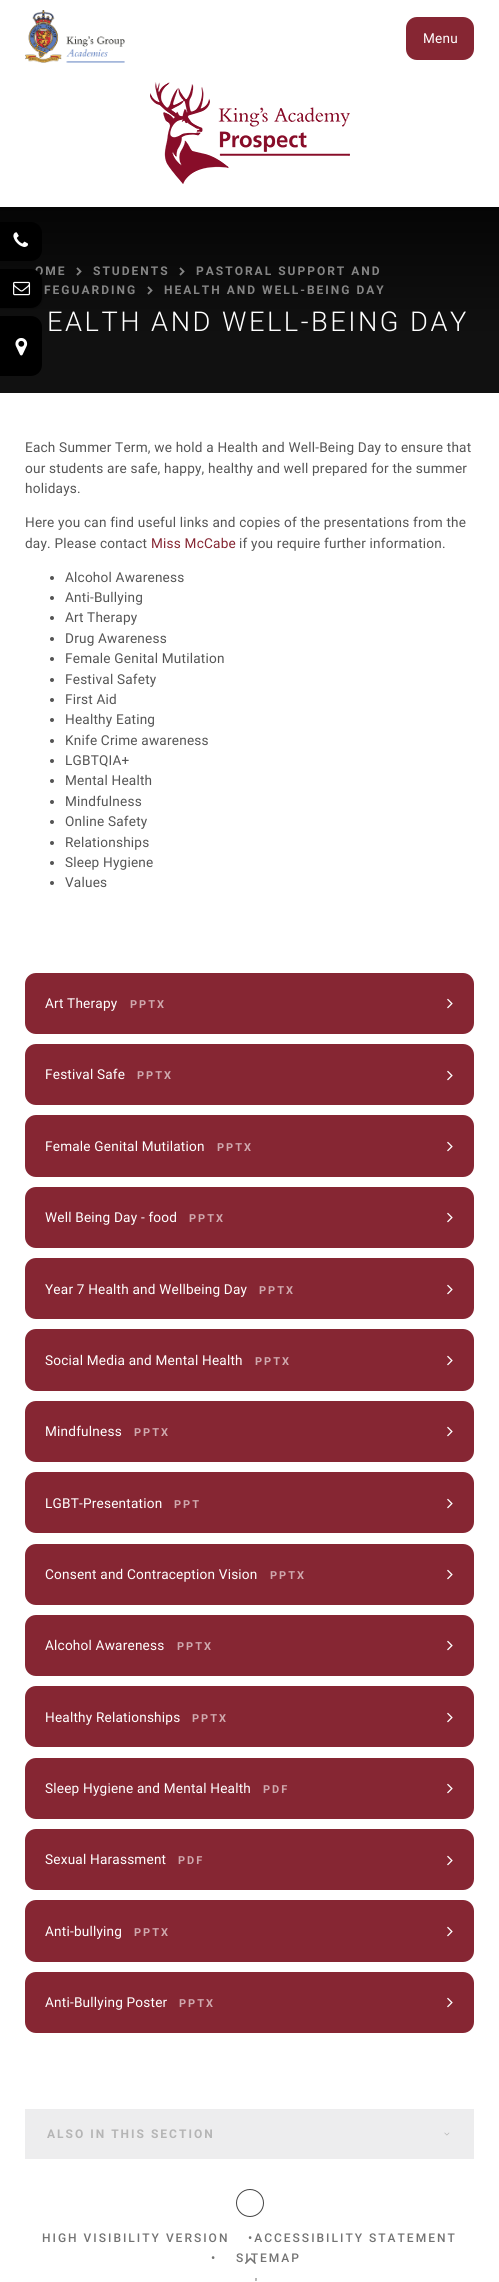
import math
import cairo

surface = cairo.ImageSurface(cairo.FORMAT_RGB24, 499, 2282)
ctx = cairo.Context(surface)
options = cairo.FontOptions()
options.set_hint_metrics(cairo.HINT_METRICS_OFF)
options.set_hint_style(cairo.HINT_STYLE_NONE)
ctx.set_font_options(options)
ctx.set_miter_limit(4)


def spaced_text(x, y, s, letter, word):
    ctx.move_to(x, y)
    for ch in s:
        ctx.show_text(ch)
        ctx.rel_move_to(letter + word * (ch == ' '), 0)


def round_rect(x, y, w, h, r):
    ctx.new_sub_path()
    for i, (u, v) in enumerate([(x + w - r, y + h - r), (x + r, y + h - r), (x + r, y + r), (x + w - r, y + r)]):
        ctx.arc(u, v, r, i * math.pi / 2, (i + 1) * math.pi / 2)
    ctx.close_path()


def shadow(x, y, w, h, r, blur, alpha):
    ctx.push_group_with_content(cairo.CONTENT_ALPHA)
    ctx.set_operator(cairo.OPERATOR_SOURCE)
    for i in range(15, -16, -2):
        e = blur * i / 6
        if min(w, h) + 2 * e > 0:
            ctx.set_source_rgba(0, 0, 0, alpha * math.erfc((i - 1) / 8.5) / 2)
            round_rect(x - e, y - e, w + 2 * e, h + 2 * e, max(0, min(r + e + blur * .6, min(w, h) / 2 + e)))
            ctx.fill()
    ctx.mask(ctx.pop_group())


def picture(path, x, y, w, h):
    ctx.save()
    ctx.set_source_surface(cairo.ImageSurface.create_from_png(path), x, y)
    ctx.rectangle(x, y, w, h)
    ctx.fill()
    ctx.restore()


ctx.set_source_rgb(1, 1, 1)
ctx.paint()
picture("img1.png", 25, 10, 100, 53)
picture("img2.png", 150, 82, 200, 102)
ctx.set_source_rgb(0.525, 0.149, 0.2)
round_rect(406, 17, 68, 43, 11)
ctx.fill()
ctx.select_font_face("Roboto")
ctx.set_font_size(13.6)
ctx.set_source_rgb(1, 1, 1)
spaced_text(423, 43, "Menu", 0.2, 0)
ctx.set_source_rgb(0.067, 0.067, 0.067)
ctx.rectangle(0, 337, 499, 56)
ctx.fill()
gradient = cairo.LinearGradient(250, 207, 250, 337)
gradient.add_color_stop_rgba(0, 0.02, 0.02, 0.02, 1)
gradient.add_color_stop_rgba(1, 0.067, 0.067, 0.067, 1)
ctx.set_source(gradient)
ctx.rectangle(0, 207, 499, 130)
ctx.fill()
ctx.set_source_rgb(0, 0, 0)
ctx.new_path()
ctx.move_to(0, 222)
ctx.line_to(31, 222)
ctx.curve_to(37, 222, 42, 227, 42, 233)
ctx.line_to(42, 250)
ctx.curve_to(42, 256, 37, 261, 31, 261)
ctx.line_to(0, 261)
ctx.close_path()
ctx.fill()
picture("img3.png", 13, 232, 15, 15)
ctx.set_source_rgb(0, 0, 0)
shadow(-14, 270, 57, 39, 11, 1, 0.2)
ctx.select_font_face("Roboto", cairo.FONT_SLANT_NORMAL, cairo.FONT_WEIGHT_BOLD)
ctx.set_font_size(12)
ctx.set_source_rgb(0.522, 0.522, 0.522)
spaced_text(35, 275, "OME", 2, 0)
ctx.set_source_rgb(0, 0, 0)
ctx.new_path()
ctx.move_to(0, 269)
ctx.line_to(31, 269)
ctx.curve_to(37, 269, 42, 274, 42, 280)
ctx.line_to(42, 297)
ctx.curve_to(42, 303, 37, 308, 31, 308)
ctx.line_to(0, 308)
ctx.close_path()
ctx.fill()
picture("img4.png", 13, 281, 18, 15)
ctx.new_path()
ctx.move_to(0, 316)
ctx.line_to(31, 316)
ctx.curve_to(37, 316, 42, 321, 42, 327)
ctx.line_to(42, 365)
ctx.curve_to(42, 371, 37, 376, 31, 376)
ctx.line_to(0, 376)
ctx.close_path()
ctx.fill()
picture("img5.png", 15, 338, 13, 18)
picture("img6.png", 179, 267, 6, 9)
ctx.set_source_rgb(0.522, 0.522, 0.522)
spaced_text(196, 275, "PASTORAL SUPPORT AND", 2, 0)
spaced_text(44, 294, "FEGUARDING", 2, 0)
picture("img6.png", 76, 267, 6, 9)
spaced_text(93, 275, "STUDENTS", 2, 0)
picture("img7.png", 147, 286, 6, 9)
spaced_text(164, 294, "HEALTH AND WELL-BEING DAY", 2, 0)
ctx.select_font_face("Roboto Light")
ctx.set_font_size(27.25)
ctx.set_source_rgb(1, 1, 1)
spaced_text(47, 331, "EALTH AND WELL-BEING DAY", 2.5, 0)
ctx.select_font_face("Roboto")
ctx.set_font_size(13.6)
ctx.set_source_rgb(0.333, 0.333, 0.333)
spaced_text(25, 452, "Each Summer Term, we hold a Health and Well-Being Day to ensure that", 0.2, 0)
spaced_text(25, 473, "our students are safe, happy, healthy and well prepared for the summer", 0.2, 0)
spaced_text(25, 493, "holidays.", 0.2, 0)
spaced_text(25, 527, "Here you can find useful links and copies of the presentations from the", 0.2, 0)
spaced_text(25, 548, "day. Please contact", 0.2, 0)
ctx.set_source_rgb(0.525, 0.149, 0.2)
spaced_text(151, 548, "Miss McCabe", 0.2, 0)
ctx.set_source_rgb(0.333, 0.333, 0.333)
spaced_text(239, 548, "if you require further information.", 0.2, 0)
ctx.new_path()
ctx.arc(52, 578, 2, 0, 2 * math.pi)
ctx.fill()
spaced_text(65, 582, "Alcohol Awareness", 0.2, 0)
ctx.new_path()
ctx.arc(52, 598, 2, 0, 2 * math.pi)
ctx.fill()
spaced_text(65, 602, "Anti-Bullying", 0.2, 0)
ctx.new_path()
ctx.arc(52, 618, 2, 0, 2 * math.pi)
ctx.fill()
spaced_text(65, 622, "Art Therapy", 0.2, 0)
ctx.new_path()
ctx.arc(52, 639, 2, 0, 2 * math.pi)
ctx.fill()
spaced_text(65, 643, "Drug Awareness", 0.2, 0)
ctx.new_path()
ctx.arc(52, 659, 2, 0, 2 * math.pi)
ctx.fill()
spaced_text(65, 663, "Female Genital Mutilation", 0.2, 0)
ctx.new_path()
ctx.arc(52, 680, 2, 0, 2 * math.pi)
ctx.fill()
spaced_text(65, 684, "Festival Safety", 0.2, 0)
ctx.new_path()
ctx.arc(52, 700, 2, 0, 2 * math.pi)
ctx.fill()
spaced_text(65, 704, "First Aid", 0.2, 0)
ctx.new_path()
ctx.arc(52, 720, 2, 0, 2 * math.pi)
ctx.fill()
spaced_text(65, 724, "Healthy Eating", 0.2, 0)
ctx.new_path()
ctx.arc(52, 741, 2, 0, 2 * math.pi)
ctx.fill()
spaced_text(65, 745, "Knife Crime awareness", 0.2, 0)
ctx.new_path()
ctx.arc(52, 761, 2, 0, 2 * math.pi)
ctx.fill()
spaced_text(65, 765, "LGBTQIA+", 0.2, 0)
ctx.new_path()
ctx.arc(52, 781, 2, 0, 2 * math.pi)
ctx.fill()
spaced_text(65, 785, "Mental Health", 0.2, 0)
ctx.new_path()
ctx.arc(52, 802, 2, 0, 2 * math.pi)
ctx.fill()
spaced_text(65, 806, "Mindfulness", 0.2, 0)
ctx.new_path()
ctx.arc(52, 822, 2, 0, 2 * math.pi)
ctx.fill()
spaced_text(65, 826, "Online Safety", 0.2, 0)
ctx.new_path()
ctx.arc(52, 843, 2, 0, 2 * math.pi)
ctx.fill()
spaced_text(65, 847, "Relationships", 0.2, 0)
ctx.new_path()
ctx.arc(52, 863, 2, 0, 2 * math.pi)
ctx.fill()
spaced_text(65, 867, "Sleep Hygiene", 0.2, 0)
ctx.new_path()
ctx.arc(52, 883, 2, 0, 2 * math.pi)
ctx.fill()
spaced_text(65, 887, "Values", 0.2, 0)
ctx.set_source_rgb(0.525, 0.149, 0.2)
round_rect(25, 973, 449, 61, 11)
ctx.fill()
ctx.set_source_rgb(1, 1, 1)
spaced_text(45, 1008, "Art Therapy", 0.2, 0)
ctx.select_font_face("Roboto", cairo.FONT_SLANT_NORMAL, cairo.FONT_WEIGHT_BOLD)
ctx.set_font_size(11)
ctx.set_source_rgb(0.812, 0.659, 0.678)
spaced_text(130, 1008, "PPTX", 2, 0)
picture("img8.png", 447, 998, 6, 11)
ctx.set_source_rgb(0.525, 0.149, 0.2)
round_rect(25, 1044, 449, 61, 11)
ctx.fill()
ctx.select_font_face("Roboto")
ctx.set_font_size(13.6)
ctx.set_source_rgb(1, 1, 1)
spaced_text(45, 1079, "Festival Safe", 0.2, 0)
ctx.select_font_face("Roboto", cairo.FONT_SLANT_NORMAL, cairo.FONT_WEIGHT_BOLD)
ctx.set_font_size(11)
ctx.set_source_rgb(0.812, 0.659, 0.678)
spaced_text(137, 1079, "PPTX", 2, 0)
picture("img8.png", 447, 1070, 6, 11)
ctx.set_source_rgb(0.525, 0.149, 0.2)
round_rect(25, 1115, 449, 62, 11)
ctx.fill()
ctx.select_font_face("Roboto")
ctx.set_font_size(13.6)
ctx.set_source_rgb(1, 1, 1)
spaced_text(45, 1151, "Female Genital Mutilation", 0.2, 0)
ctx.select_font_face("Roboto", cairo.FONT_SLANT_NORMAL, cairo.FONT_WEIGHT_BOLD)
ctx.set_font_size(11)
ctx.set_source_rgb(0.812, 0.659, 0.678)
spaced_text(217, 1151, "PPTX", 2, 0)
picture("img8.png", 447, 1141, 6, 11)
ctx.set_source_rgb(0.525, 0.149, 0.2)
round_rect(25, 1187, 449, 61, 11)
ctx.fill()
ctx.select_font_face("Roboto")
ctx.set_font_size(13.6)
ctx.set_source_rgb(1, 1, 1)
spaced_text(45, 1222, "Well Being Day - food", 0.2, 0)
ctx.select_font_face("Roboto", cairo.FONT_SLANT_NORMAL, cairo.FONT_WEIGHT_BOLD)
ctx.set_font_size(11)
ctx.set_source_rgb(0.812, 0.659, 0.678)
spaced_text(189, 1222, "PPTX", 2, 0)
picture("img8.png", 447, 1212, 6, 11)
ctx.set_source_rgb(0.525, 0.149, 0.2)
round_rect(25, 1258, 449, 61, 11)
ctx.fill()
ctx.select_font_face("Roboto")
ctx.set_font_size(13.6)
ctx.set_source_rgb(1, 1, 1)
spaced_text(45, 1294, "Year 7 Health and Wellbeing Day", 0.2, 0)
ctx.select_font_face("Roboto", cairo.FONT_SLANT_NORMAL, cairo.FONT_WEIGHT_BOLD)
ctx.set_font_size(11)
ctx.set_source_rgb(0.812, 0.659, 0.678)
spaced_text(259, 1294, "PPTX", 2, 0)
picture("img8.png", 447, 1284, 6, 11)
ctx.set_source_rgb(0.525, 0.149, 0.2)
round_rect(25, 1329, 449, 62, 11)
ctx.fill()
ctx.select_font_face("Roboto")
ctx.set_font_size(13.6)
ctx.set_source_rgb(1, 1, 1)
spaced_text(45, 1365, "Social Media and Mental Health", 0.2, 0)
ctx.select_font_face("Roboto", cairo.FONT_SLANT_NORMAL, cairo.FONT_WEIGHT_BOLD)
ctx.set_font_size(11)
ctx.set_source_rgb(0.812, 0.659, 0.678)
spaced_text(255, 1365, "PPTX", 2, 0)
picture("img8.png", 447, 1355, 6, 11)
ctx.set_source_rgb(0.525, 0.149, 0.2)
round_rect(25, 1401, 449, 61, 11)
ctx.fill()
ctx.select_font_face("Roboto")
ctx.set_font_size(13.6)
ctx.set_source_rgb(1, 1, 1)
spaced_text(45, 1436, "Mindfulness", 0.2, 0)
ctx.select_font_face("Roboto", cairo.FONT_SLANT_NORMAL, cairo.FONT_WEIGHT_BOLD)
ctx.set_font_size(11)
ctx.set_source_rgb(0.812, 0.659, 0.678)
spaced_text(134, 1436, "PPTX", 2, 0)
picture("img8.png", 447, 1426, 6, 11)
ctx.set_source_rgb(0.525, 0.149, 0.2)
round_rect(25, 1472, 449, 61, 11)
ctx.fill()
ctx.select_font_face("Roboto")
ctx.set_font_size(13.6)
ctx.set_source_rgb(1, 1, 1)
spaced_text(45, 1508, "LGBT-Presentation", 0.2, 0)
ctx.select_font_face("Roboto", cairo.FONT_SLANT_NORMAL, cairo.FONT_WEIGHT_BOLD)
ctx.set_font_size(11)
ctx.set_source_rgb(0.812, 0.659, 0.678)
spaced_text(174, 1508, "PPT", 2, 0)
picture("img8.png", 447, 1498, 6, 11)
ctx.set_source_rgb(0.525, 0.149, 0.2)
round_rect(25, 1544, 449, 61, 11)
ctx.fill()
ctx.select_font_face("Roboto")
ctx.set_font_size(13.6)
ctx.set_source_rgb(1, 1, 1)
spaced_text(45, 1579, "Consent and Contraception Vision", 0.2, 0)
ctx.select_font_face("Roboto", cairo.FONT_SLANT_NORMAL, cairo.FONT_WEIGHT_BOLD)
ctx.set_font_size(11)
ctx.set_source_rgb(0.812, 0.659, 0.678)
spaced_text(270, 1579, "PPTX", 2, 0)
picture("img8.png", 447, 1569, 6, 11)
ctx.set_source_rgb(0.525, 0.149, 0.2)
round_rect(25, 1615, 449, 61, 11)
ctx.fill()
ctx.select_font_face("Roboto")
ctx.set_font_size(13.6)
ctx.set_source_rgb(1, 1, 1)
spaced_text(45, 1650, "Alcohol Awareness", 0.2, 0)
ctx.select_font_face("Roboto", cairo.FONT_SLANT_NORMAL, cairo.FONT_WEIGHT_BOLD)
ctx.set_font_size(11)
ctx.set_source_rgb(0.812, 0.659, 0.678)
spaced_text(177, 1650, "PPTX", 2, 0)
picture("img8.png", 447, 1640, 6, 11)
ctx.set_source_rgb(0.525, 0.149, 0.2)
round_rect(25, 1686, 449, 61, 11)
ctx.fill()
ctx.select_font_face("Roboto")
ctx.set_font_size(13.6)
ctx.set_source_rgb(1, 1, 1)
spaced_text(45, 1722, "Healthy Relationships", 0.2, 0)
ctx.select_font_face("Roboto", cairo.FONT_SLANT_NORMAL, cairo.FONT_WEIGHT_BOLD)
ctx.set_font_size(11)
ctx.set_source_rgb(0.812, 0.659, 0.678)
spaced_text(192, 1722, "PPTX", 2, 0)
picture("img8.png", 447, 1712, 6, 11)
ctx.set_source_rgb(0.525, 0.149, 0.2)
round_rect(25, 1758, 449, 61, 11)
ctx.fill()
ctx.select_font_face("Roboto")
ctx.set_font_size(13.6)
ctx.set_source_rgb(1, 1, 1)
spaced_text(45, 1793, "Sleep Hygiene and Mental Health", 0.2, 0)
ctx.select_font_face("Roboto", cairo.FONT_SLANT_NORMAL, cairo.FONT_WEIGHT_BOLD)
ctx.set_font_size(11)
ctx.set_source_rgb(0.812, 0.659, 0.678)
spaced_text(263, 1793, "PDF", 2, 0)
picture("img8.png", 447, 1783, 6, 11)
ctx.set_source_rgb(0.525, 0.149, 0.2)
round_rect(25, 1829, 449, 61, 11)
ctx.fill()
ctx.select_font_face("Roboto")
ctx.set_font_size(13.6)
ctx.set_source_rgb(1, 1, 1)
spaced_text(45, 1864, "Sexual Harassment", 0.2, 0)
ctx.select_font_face("Roboto", cairo.FONT_SLANT_NORMAL, cairo.FONT_WEIGHT_BOLD)
ctx.set_font_size(11)
ctx.set_source_rgb(0.812, 0.659, 0.678)
spaced_text(178, 1864, "PDF", 2, 0)
picture("img8.png", 447, 1855, 6, 11)
ctx.set_source_rgb(0.525, 0.149, 0.2)
round_rect(25, 1900, 449, 62, 11)
ctx.fill()
ctx.select_font_face("Roboto")
ctx.set_font_size(13.6)
ctx.set_source_rgb(1, 1, 1)
spaced_text(45, 1936, "Anti-bullying", 0.2, 0)
ctx.select_font_face("Roboto", cairo.FONT_SLANT_NORMAL, cairo.FONT_WEIGHT_BOLD)
ctx.set_font_size(11)
ctx.set_source_rgb(0.812, 0.659, 0.678)
spaced_text(134, 1936, "PPTX", 2, 0)
picture("img8.png", 447, 1926, 6, 11)
ctx.set_source_rgb(0.525, 0.149, 0.2)
round_rect(25, 1972, 449, 61, 11)
ctx.fill()
ctx.select_font_face("Roboto")
ctx.set_font_size(13.6)
ctx.set_source_rgb(1, 1, 1)
spaced_text(45, 2007, "Anti-Bullying Poster", 0.2, 0)
ctx.select_font_face("Roboto", cairo.FONT_SLANT_NORMAL, cairo.FONT_WEIGHT_BOLD)
ctx.set_font_size(11)
ctx.set_source_rgb(0.812, 0.659, 0.678)
spaced_text(179, 2007, "PPTX", 2, 0)
picture("img8.png", 447, 1997, 6, 11)
ctx.set_source_rgb(0.929, 0.929, 0.933)
ctx.rectangle(25, 2109, 449, 50)
ctx.fill()
ctx.set_font_size(12)
ctx.set_source_rgb(0.71, 0.71, 0.71)
spaced_text(47, 2138, "ALSO IN THIS SECTION", 2, 0)
picture("img9.png", 444, 2132, 6, 4)
ctx.arc(250, 2203, 13.5, 0, 2 * math.pi)
ctx.set_source_rgb(0.267, 0.267, 0.267)
ctx.set_line_width(1)
ctx.stroke()
ctx.select_font_face("Roboto Medium")
ctx.set_source_rgb(0.451, 0.451, 0.451)
spaced_text(236, 2262, "SITEMAP", 2, 0)
picture("img10.png", 244, 2257, 12, 7)
spaced_text(42, 2242, "HIGH VISIBILITY VERSION", 2, 0)
spaced_text(248, 2242, "•ACCESSIBILITY STATEMENT", 2, 0)
spaced_text(211, 2262, "•", 2, 0)
spaced_text(255, 2287, "'", 2, 0)
surface.write_to_png("page.png")
